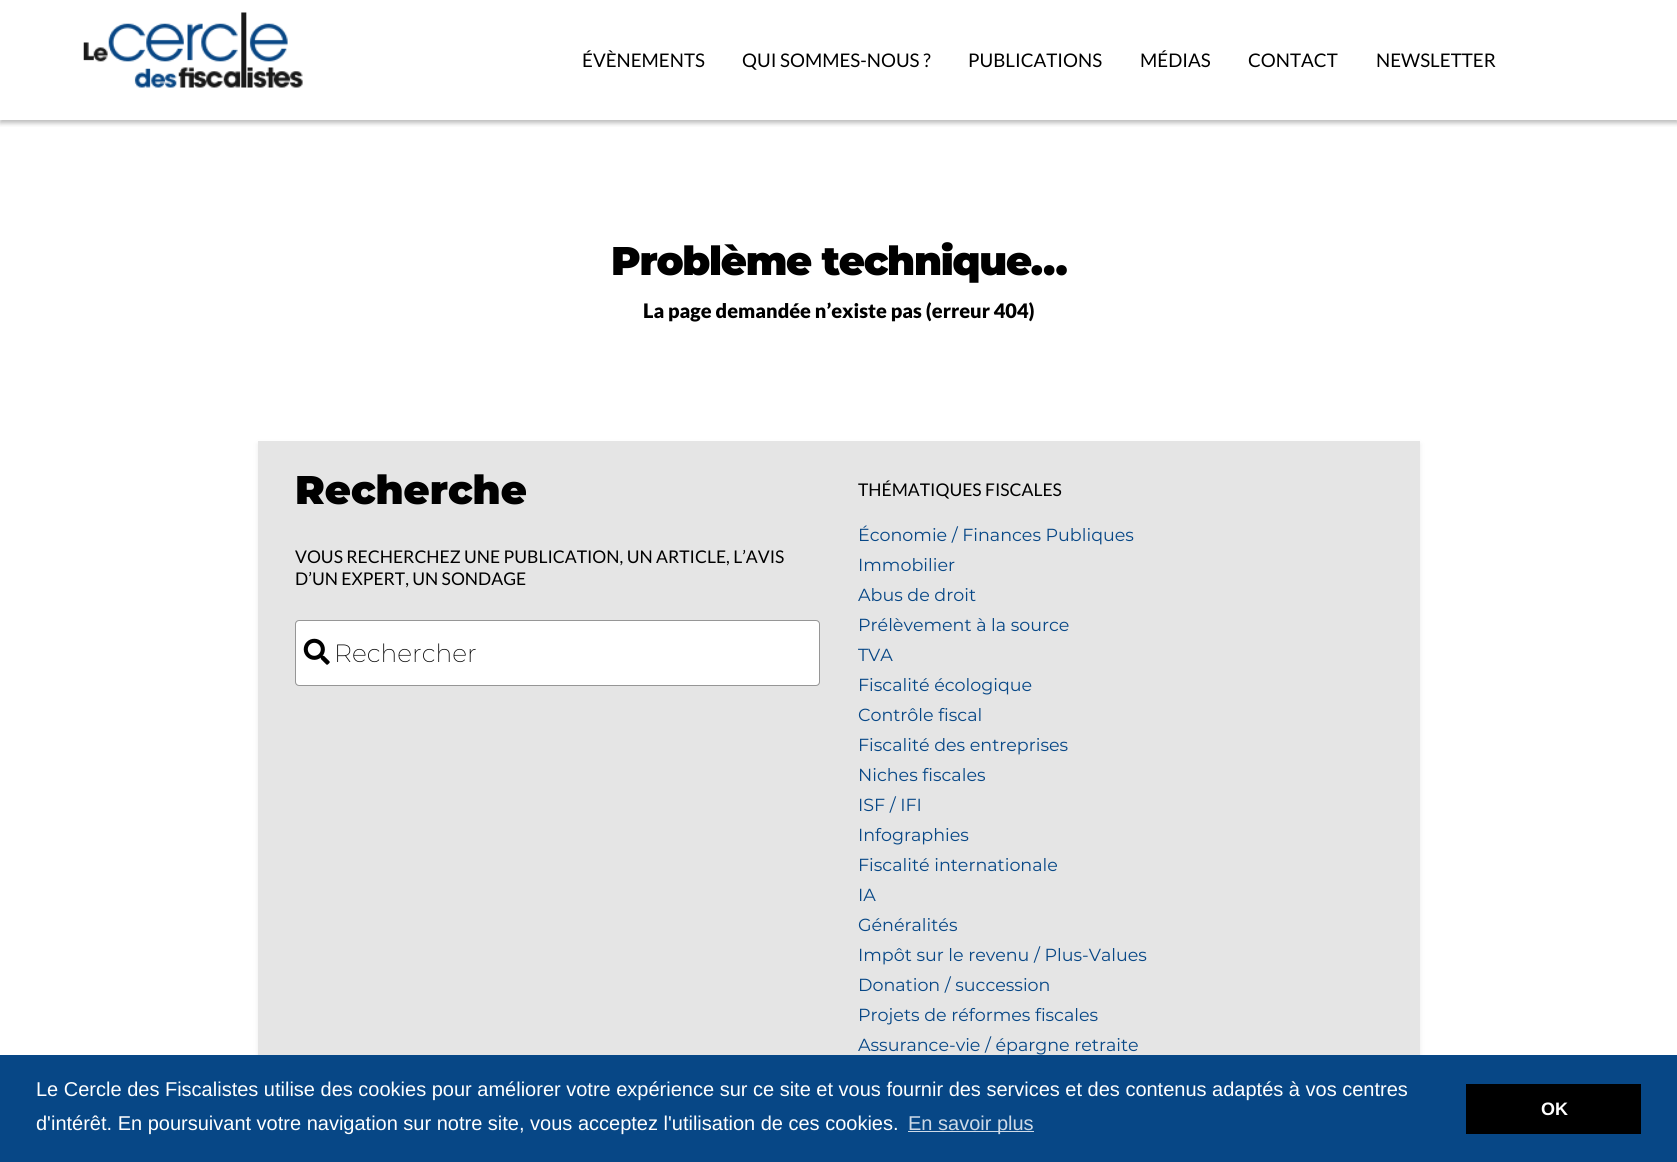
import math
import cairo

surface = cairo.ImageSurface(cairo.FORMAT_RGB24, 1677, 1162)
ctx = cairo.Context(surface)
options = cairo.FontOptions()
options.set_hint_metrics(cairo.HINT_METRICS_OFF)
options.set_hint_style(cairo.HINT_STYLE_NONE)
ctx.set_font_options(options)
ctx.set_miter_limit(4)


def spaced_text(x, y, s, letter, word):
    ctx.move_to(x, y)
    for ch in s:
        ctx.show_text(ch)
        ctx.rel_move_to(letter + word * (ch == ' '), 0)


def round_rect(x, y, w, h, r):
    ctx.new_sub_path()
    for i, (u, v) in enumerate([(x + w - r, y + h - r), (x + r, y + h - r), (x + r, y + r), (x + w - r, y + r)]):
        ctx.arc(u, v, r, i * math.pi / 2, (i + 1) * math.pi / 2)
    ctx.close_path()


def shadow(x, y, w, h, r, blur, alpha):
    ctx.push_group_with_content(cairo.CONTENT_ALPHA)
    ctx.set_operator(cairo.OPERATOR_SOURCE)
    for i in range(15, -16, -2):
        e = blur * i / 6
        if min(w, h) + 2 * e > 0:
            ctx.set_source_rgba(0, 0, 0, alpha * math.erfc((i - 1) / 8.5) / 2)
            round_rect(x - e, y - e, w + 2 * e, h + 2 * e, max(0, min(r + e + blur * .6, min(w, h) / 2 + e)))
            ctx.fill()
    ctx.mask(ctx.pop_group())


def picture(path, x, y, w, h):
    ctx.save()
    ctx.set_source_surface(cairo.ImageSurface.create_from_png(path), x, y)
    ctx.rectangle(x, y, w, h)
    ctx.fill()
    ctx.restore()


ctx.set_source_rgb(1, 1, 1)
ctx.paint()
ctx.save()
ctx.rectangle(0, 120, 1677, 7)
ctx.clip()
ctx.set_source_rgb(0.098, 0.098, 0.098)
shadow(0, 3, 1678, 120, 0, 2.5, 0.3)
ctx.restore()
picture("img1.png", 83, 12, 220, 76)
ctx.select_font_face("Lato")
ctx.set_font_size(18.75)
ctx.set_source_rgb(0, 0, 0)
ctx.move_to(582, 67)
ctx.show_text("ÉVÈNEMENTS")
ctx.move_to(742, 67)
ctx.show_text("QUI SOMMES-NOUS ?")
ctx.move_to(968, 67)
ctx.show_text("PUBLICATIONS")
ctx.move_to(1140, 67)
ctx.show_text("MÉDIAS")
ctx.move_to(1248, 67)
ctx.show_text("CONTACT")
ctx.move_to(1376, 67)
ctx.show_text("NEWSLETTER")
ctx.select_font_face("Montserrat Black")
ctx.set_font_size(40)
spaced_text(611, 275, "Problème technique…", -1.25, 0)
ctx.select_font_face("Lato Black")
ctx.set_font_size(20)
ctx.move_to(643, 318)
ctx.show_text("La page demandée n’existe pas (erreur 404)")
ctx.set_source_rgb(0.898, 0.898, 0.898)
shadow(258, 444, 1162, 687, 0, 2.5, 0.7)
ctx.set_source_rgb(0.898, 0.898, 0.898)
ctx.rectangle(258, 441, 1162, 614)
ctx.fill()
ctx.select_font_face("Montserrat Black")
ctx.set_font_size(40)
ctx.set_source_rgb(0, 0, 0)
ctx.move_to(295, 504)
ctx.show_text("Recherche")
ctx.select_font_face("Lato")
ctx.set_font_size(17.5)
ctx.move_to(295, 563)
ctx.show_text("VOUS RECHERCHEZ UNE PUBLICATION, UN ARTICLE, L’AVIS")
ctx.move_to(295, 585)
ctx.show_text("D’UN EXPERT, UN SONDAGE")
ctx.set_source_rgb(1, 1, 1)
round_rect(296, 621, 523, 64, 2.5)
ctx.fill()
round_rect(295.5, 620.5, 524, 65, 3.5)
ctx.set_source_rgb(0.588, 0.588, 0.588)
ctx.set_line_width(1)
ctx.stroke()
picture("img2.png", 303, 638, 27, 27)
ctx.select_font_face("Montserrat ExtraLight")
ctx.set_font_size(25)
ctx.set_source_rgb(0, 0, 0)
ctx.move_to(334, 662)
ctx.show_text("Rechercher")
ctx.select_font_face("Lato")
ctx.set_font_size(17.5)
ctx.move_to(858, 496)
ctx.show_text("THÉMATIQUES FISCALES")
ctx.select_font_face("Montserrat")
ctx.set_source_rgb(0.031, 0.278, 0.525)
ctx.move_to(858, 541)
ctx.show_text("Économie / Finances Publiques")
ctx.move_to(858, 571)
ctx.show_text("Immobilier")
ctx.move_to(858, 601)
ctx.show_text("Abus de droit")
ctx.move_to(858, 631)
ctx.show_text("Prélèvement à la source")
ctx.move_to(858, 661)
ctx.show_text("TVA")
ctx.move_to(858, 691)
ctx.show_text("Fiscalité écologique")
ctx.move_to(858, 721)
ctx.show_text("Contrôle fiscal")
ctx.move_to(858, 751)
ctx.show_text("Fiscalité des entreprises")
ctx.move_to(858, 781)
ctx.show_text("Niches fiscales")
ctx.move_to(858, 811)
ctx.show_text("ISF / IFI")
ctx.move_to(858, 841)
ctx.show_text("Infographies")
ctx.move_to(858, 871)
ctx.show_text("Fiscalité internationale")
ctx.move_to(858, 901)
ctx.show_text("IA")
ctx.move_to(858, 931)
ctx.show_text("Généralités")
ctx.move_to(858, 961)
ctx.show_text("Impôt sur le revenu / Plus-Values")
ctx.move_to(858, 991)
ctx.show_text("Donation / succession")
ctx.move_to(858, 1021)
ctx.show_text("Projets de réformes fiscales")
ctx.move_to(858, 1051)
ctx.show_text("Assurance-vie / épargne retraite")
ctx.rectangle(0, 1055, 1677, 107)
ctx.fill()
ctx.select_font_face("Liberation Sans")
ctx.set_font_size(20)
ctx.set_source_rgb(1, 1, 1)
ctx.move_to(36, 1096)
ctx.show_text("Le Cercle des Fiscalistes utilise des cookies pour améliorer votre expérience sur ce site et vous fournir des services et des contenus adaptés à vos centres")
ctx.move_to(36, 1130)
ctx.show_text("d'intérêt. En poursuivant votre navigation sur notre site, vous acceptez l'utilisation de ces cookies.")
ctx.set_source_rgb(0.808, 0.855, 0.906)
ctx.rectangle(908, 1131, 126, 1)
ctx.fill()
ctx.move_to(908, 1130)
ctx.show_text("En savoir plus")
ctx.set_source_rgb(0, 0, 0)
ctx.rectangle(1466, 1084, 175, 50)
ctx.fill()
ctx.select_font_face("Liberation Sans", cairo.FONT_SLANT_NORMAL, cairo.FONT_WEIGHT_BOLD)
ctx.set_font_size(18)
ctx.set_source_rgb(1, 1, 1)
ctx.move_to(1541, 1115)
ctx.show_text("OK")
surface.write_to_png("page.png")
